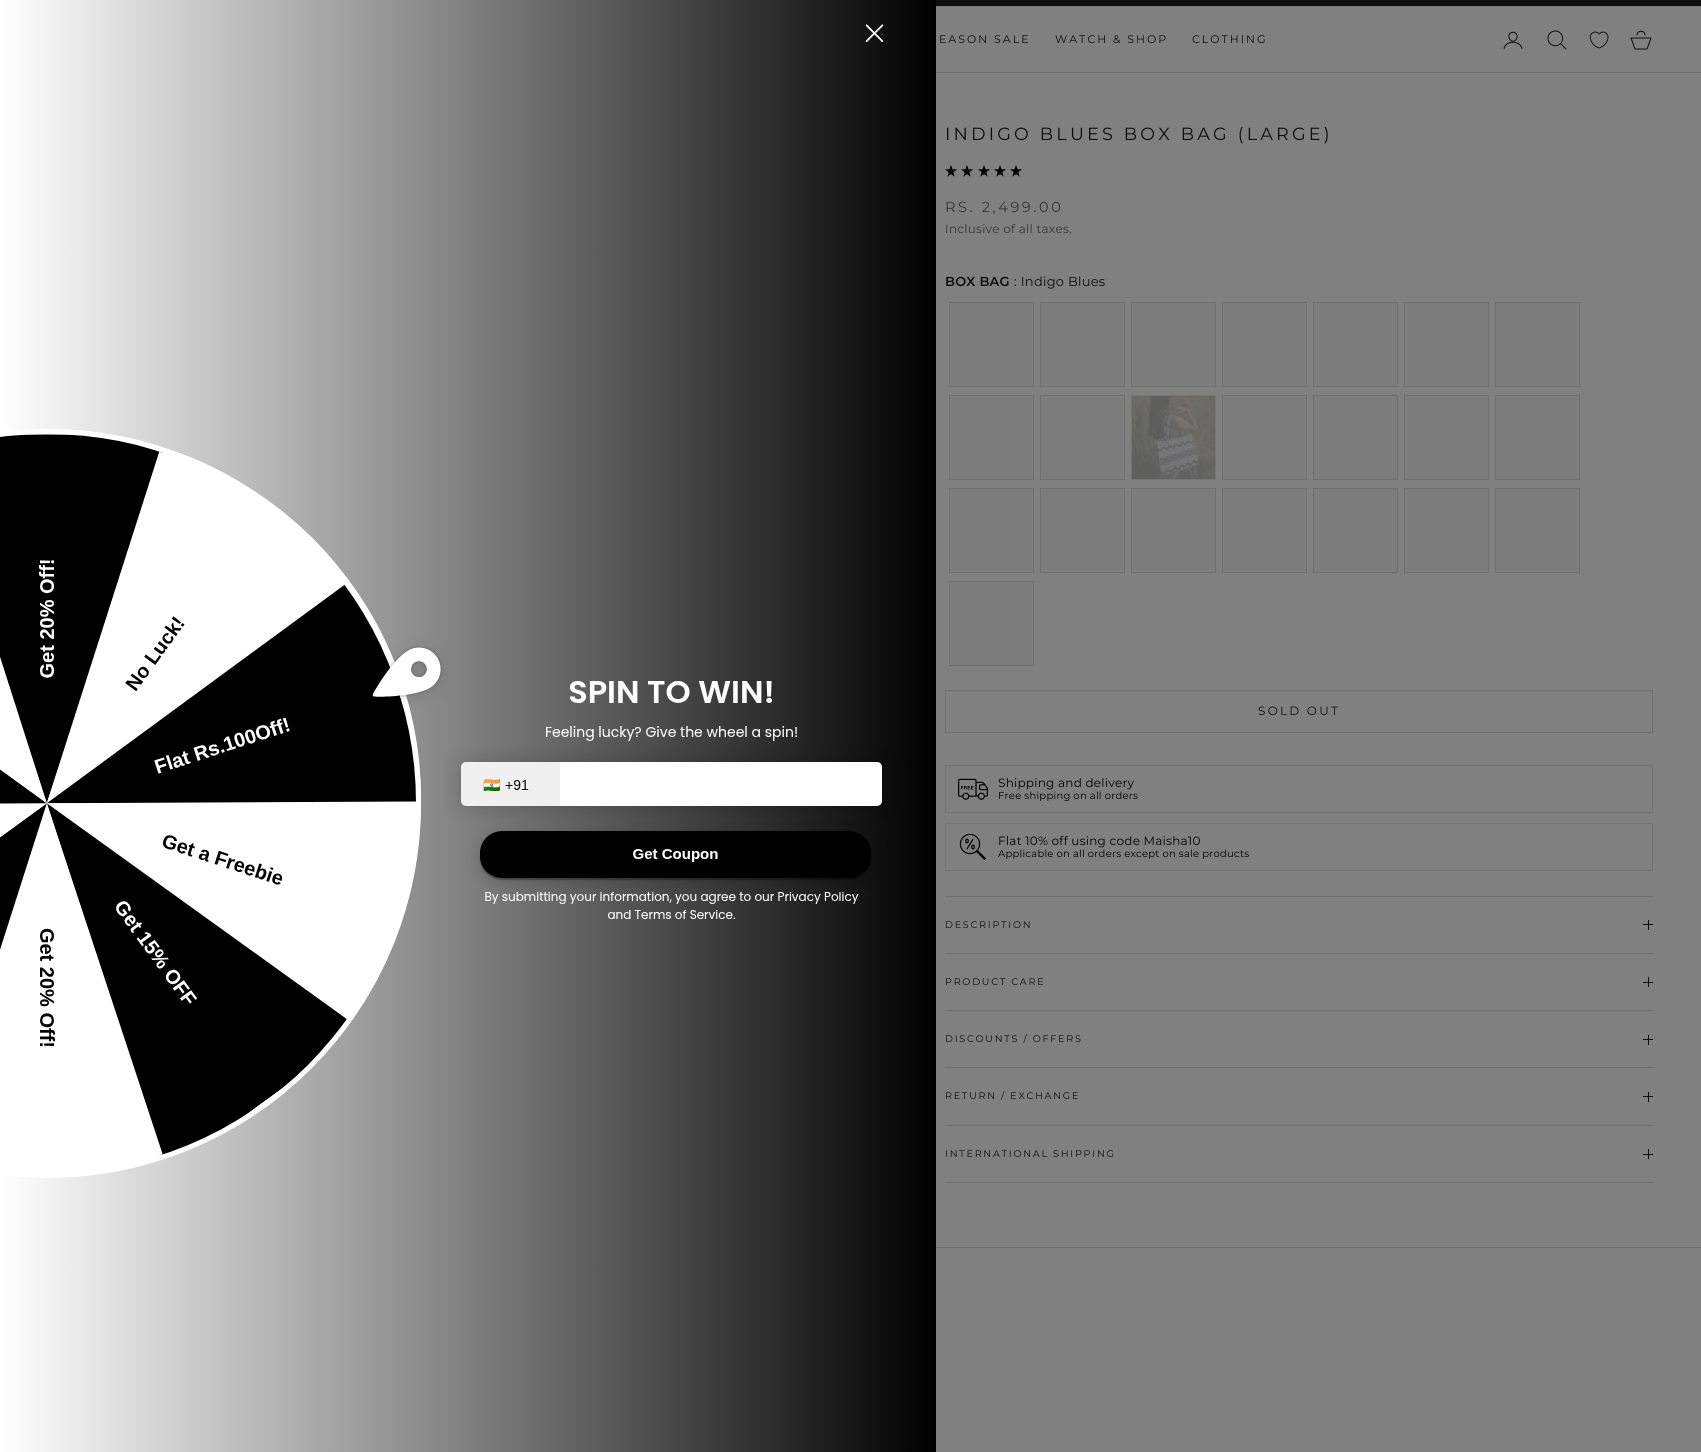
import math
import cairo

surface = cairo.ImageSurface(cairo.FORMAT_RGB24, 1701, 1452)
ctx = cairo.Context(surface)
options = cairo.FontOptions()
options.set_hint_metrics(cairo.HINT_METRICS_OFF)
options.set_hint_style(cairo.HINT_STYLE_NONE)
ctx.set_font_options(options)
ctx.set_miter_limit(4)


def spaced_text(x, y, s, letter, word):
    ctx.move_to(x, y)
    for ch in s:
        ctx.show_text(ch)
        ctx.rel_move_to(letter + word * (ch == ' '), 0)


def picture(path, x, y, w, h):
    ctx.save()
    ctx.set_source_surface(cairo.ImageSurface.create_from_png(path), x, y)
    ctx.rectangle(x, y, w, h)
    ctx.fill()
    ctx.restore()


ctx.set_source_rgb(0.502, 0.502, 0.502)
ctx.paint()
picture("img1.png", 0, 0, 936, 1452)
ctx.set_source_rgb(0.055, 0.055, 0.055)
ctx.rectangle(936, 0, 765, 6)
ctx.fill()
ctx.set_source_rgb(0.435, 0.435, 0.435)
ctx.rectangle(936, 72, 765, 1)
ctx.fill()
ctx.set_source_rgb(0.459, 0.459, 0.459)
ctx.rectangle(936, 6, 765, 1)
ctx.fill()
ctx.select_font_face("Montserrat")
ctx.set_font_size(11)
ctx.set_source_rgb(0.055, 0.055, 0.055)
spaced_text(939, 43, "EASON SALE", 2, 0)
spaced_text(1055, 43, "WATCH & SHOP", 2, 0)
spaced_text(1192, 43, "CLOTHING", 2, 0)
picture("img2.png", 1503, 31, 20, 18)
picture("img3.png", 1547, 30, 20, 20)
picture("img4.png", 1589, 31, 20, 18)
ctx.new_path()
ctx.move_to(1631, 38)
ctx.line_to(1651, 38)
ctx.line_to(1647, 49)
ctx.line_to(1635, 49)
ctx.close_path()
ctx.move_to(1645, 35)
ctx.curve_to(1645, 30, 1637, 30, 1637, 35)
ctx.set_line_width(1)
ctx.set_line_cap(cairo.LINE_CAP_ROUND)
ctx.set_line_join(cairo.LINE_JOIN_ROUND)
ctx.stroke()
ctx.set_font_size(17.6)
spaced_text(945, 140, "INDIGO BLUES BOX BAG (LARGE)", 3.2, 0)
picture("img5.png", 945, 165, 12, 12)
picture("img5.png", 961, 165, 12, 12)
picture("img5.png", 978, 165, 12, 12)
picture("img5.png", 994, 165, 12, 12)
picture("img5.png", 1010, 165, 12, 12)
ctx.set_font_size(14.5)
ctx.set_source_rgb(0.212, 0.212, 0.212)
spaced_text(945, 212, "RS. 2,499.00", 2.6, 0)
ctx.set_font_size(12)
spaced_text(945, 233, "Inclusive of all taxes.", 0.25, 0)
ctx.select_font_face("Montserrat SemiBold")
ctx.set_font_size(13)
ctx.set_source_rgb(0.055, 0.055, 0.055)
spaced_text(945, 286, "BOX BAG", 0.25, 0)
ctx.select_font_face("Montserrat")
spaced_text(1014, 286, ": Indigo Blues", 0.25, 0)
ctx.rectangle(949.5, 302.5, 84, 84)
ctx.set_source_rgb(0.435, 0.435, 0.435)
ctx.set_line_cap(cairo.LINE_CAP_BUTT)
ctx.set_line_join(cairo.LINE_JOIN_MITER)
ctx.stroke()
ctx.set_source_rgb(0.49, 0.49, 0.49)
ctx.rectangle(950, 303, 83, 83)
ctx.fill()
ctx.rectangle(1040.5, 302.5, 84, 84)
ctx.set_source_rgb(0.435, 0.435, 0.435)
ctx.stroke()
ctx.set_source_rgb(0.49, 0.49, 0.49)
ctx.rectangle(1041, 303, 83, 83)
ctx.fill()
ctx.rectangle(1131.5, 302.5, 84, 84)
ctx.set_source_rgb(0.435, 0.435, 0.435)
ctx.stroke()
ctx.set_source_rgb(0.49, 0.49, 0.49)
ctx.rectangle(1132, 303, 83, 83)
ctx.fill()
ctx.rectangle(1222.5, 302.5, 84, 84)
ctx.set_source_rgb(0.435, 0.435, 0.435)
ctx.stroke()
ctx.set_source_rgb(0.49, 0.49, 0.49)
ctx.rectangle(1223, 303, 83, 83)
ctx.fill()
ctx.rectangle(1313.5, 302.5, 84, 84)
ctx.set_source_rgb(0.435, 0.435, 0.435)
ctx.stroke()
ctx.set_source_rgb(0.49, 0.49, 0.49)
ctx.rectangle(1314, 303, 83, 83)
ctx.fill()
ctx.rectangle(1404.5, 302.5, 84, 84)
ctx.set_source_rgb(0.435, 0.435, 0.435)
ctx.stroke()
ctx.set_source_rgb(0.49, 0.49, 0.49)
ctx.rectangle(1405, 303, 83, 83)
ctx.fill()
ctx.rectangle(1495.5, 302.5, 84, 84)
ctx.set_source_rgb(0.435, 0.435, 0.435)
ctx.stroke()
ctx.set_source_rgb(0.49, 0.49, 0.49)
ctx.rectangle(1496, 303, 83, 83)
ctx.fill()
ctx.rectangle(949.5, 395.5, 84, 84)
ctx.set_source_rgb(0.435, 0.435, 0.435)
ctx.stroke()
ctx.set_source_rgb(0.49, 0.49, 0.49)
ctx.rectangle(950, 396, 83, 83)
ctx.fill()
ctx.rectangle(1040.5, 395.5, 84, 84)
ctx.set_source_rgb(0.435, 0.435, 0.435)
ctx.stroke()
ctx.set_source_rgb(0.49, 0.49, 0.49)
ctx.rectangle(1041, 396, 83, 83)
ctx.fill()
ctx.rectangle(1131.5, 395.5, 84, 84)
ctx.set_source_rgb(0.459, 0.459, 0.459)
ctx.stroke()
picture("img6.png", 1132, 396, 83, 83)
ctx.rectangle(1222.5, 395.5, 84, 84)
ctx.set_source_rgb(0.435, 0.435, 0.435)
ctx.stroke()
ctx.set_source_rgb(0.49, 0.49, 0.49)
ctx.rectangle(1223, 396, 83, 83)
ctx.fill()
ctx.rectangle(1313.5, 395.5, 84, 84)
ctx.set_source_rgb(0.435, 0.435, 0.435)
ctx.stroke()
ctx.set_source_rgb(0.49, 0.49, 0.49)
ctx.rectangle(1314, 396, 83, 83)
ctx.fill()
ctx.rectangle(1404.5, 395.5, 84, 84)
ctx.set_source_rgb(0.435, 0.435, 0.435)
ctx.stroke()
ctx.set_source_rgb(0.49, 0.49, 0.49)
ctx.rectangle(1405, 396, 83, 83)
ctx.fill()
ctx.rectangle(1495.5, 395.5, 84, 84)
ctx.set_source_rgb(0.435, 0.435, 0.435)
ctx.stroke()
ctx.set_source_rgb(0.49, 0.49, 0.49)
ctx.rectangle(1496, 396, 83, 83)
ctx.fill()
ctx.rectangle(949.5, 488.5, 84, 84)
ctx.set_source_rgb(0.435, 0.435, 0.435)
ctx.stroke()
ctx.set_source_rgb(0.49, 0.49, 0.49)
ctx.rectangle(950, 489, 83, 83)
ctx.fill()
ctx.rectangle(1040.5, 488.5, 84, 84)
ctx.set_source_rgb(0.435, 0.435, 0.435)
ctx.stroke()
ctx.set_source_rgb(0.49, 0.49, 0.49)
ctx.rectangle(1041, 489, 83, 83)
ctx.fill()
ctx.rectangle(1131.5, 488.5, 84, 84)
ctx.set_source_rgb(0.435, 0.435, 0.435)
ctx.stroke()
ctx.set_source_rgb(0.49, 0.49, 0.49)
ctx.rectangle(1132, 489, 83, 83)
ctx.fill()
ctx.rectangle(1222.5, 488.5, 84, 84)
ctx.set_source_rgb(0.435, 0.435, 0.435)
ctx.stroke()
ctx.set_source_rgb(0.49, 0.49, 0.49)
ctx.rectangle(1223, 489, 83, 83)
ctx.fill()
ctx.rectangle(1313.5, 488.5, 84, 84)
ctx.set_source_rgb(0.435, 0.435, 0.435)
ctx.stroke()
ctx.set_source_rgb(0.49, 0.49, 0.49)
ctx.rectangle(1314, 489, 83, 83)
ctx.fill()
ctx.rectangle(1404.5, 488.5, 84, 84)
ctx.set_source_rgb(0.435, 0.435, 0.435)
ctx.stroke()
ctx.set_source_rgb(0.49, 0.49, 0.49)
ctx.rectangle(1405, 489, 83, 83)
ctx.fill()
ctx.rectangle(1495.5, 488.5, 84, 84)
ctx.set_source_rgb(0.435, 0.435, 0.435)
ctx.stroke()
ctx.set_source_rgb(0.49, 0.49, 0.49)
ctx.rectangle(1496, 489, 83, 83)
ctx.fill()
ctx.rectangle(949.5, 581.5, 84, 84)
ctx.set_source_rgb(0.435, 0.435, 0.435)
ctx.stroke()
ctx.set_source_rgb(0.49, 0.49, 0.49)
ctx.rectangle(950, 582, 83, 83)
ctx.fill()
ctx.rectangle(945.5, 690.5, 707, 42)
ctx.set_source_rgb(0.435, 0.435, 0.435)
ctx.stroke()
ctx.set_font_size(12)
ctx.set_source_rgb(0.055, 0.055, 0.055)
spaced_text(1258, 715, "SOLD OUT", 2.25, 0)
ctx.rectangle(945.5, 765.5, 707, 47)
ctx.set_source_rgb(0.459, 0.459, 0.459)
ctx.stroke()
picture("img7.png", 958, 778, 30, 22)
ctx.set_source_rgb(0, 0, 0)
spaced_text(998, 787, "Shipping and delivery", 0.25, 0)
ctx.set_font_size(10)
spaced_text(998, 799, "Free shipping on all orders", 0.25, 0)
ctx.rectangle(945.5, 823.5, 707, 47)
ctx.set_source_rgb(0.459, 0.459, 0.459)
ctx.stroke()
picture("img8.png", 959, 833, 28, 27)
ctx.set_font_size(12)
ctx.set_source_rgb(0, 0, 0)
spaced_text(998, 845, "Flat 10% off using code Maisha10", 0.25, 0)
ctx.set_font_size(10)
spaced_text(998, 857, "Applicable on all orders except on sale products", 0.25, 0)
ctx.set_source_rgb(0.435, 0.435, 0.435)
ctx.rectangle(945, 896, 708, 1)
ctx.fill()
ctx.rectangle(945, 953, 708, 1)
ctx.fill()
ctx.set_font_size(9.6)
ctx.set_source_rgb(0.055, 0.055, 0.055)
spaced_text(945, 928, "DESCRIPTION", 1.75, 0)
ctx.rectangle(1648, 920, 1, 10)
ctx.fill()
ctx.rectangle(1643, 924, 10, 1)
ctx.fill()
ctx.set_source_rgb(0.435, 0.435, 0.435)
ctx.rectangle(945, 1010, 708, 1)
ctx.fill()
ctx.set_source_rgb(0.055, 0.055, 0.055)
spaced_text(945, 985, "PRODUCT CARE", 1.75, 0)
ctx.rectangle(1648, 977, 1, 10)
ctx.fill()
ctx.rectangle(1643, 982, 10, 1)
ctx.fill()
ctx.set_source_rgb(0.435, 0.435, 0.435)
ctx.rectangle(945, 1067, 708, 1)
ctx.fill()
ctx.set_source_rgb(0.055, 0.055, 0.055)
spaced_text(945, 1042, "DISCOUNTS / OFFERS", 1.75, 0)
ctx.rectangle(1648, 1035, 1, 10)
ctx.fill()
ctx.rectangle(1643, 1039, 10, 1)
ctx.fill()
ctx.set_source_rgb(0.435, 0.435, 0.435)
ctx.rectangle(945, 1125, 708, 1)
ctx.fill()
ctx.set_source_rgb(0.055, 0.055, 0.055)
spaced_text(945, 1099, "RETURN / EXCHANGE", 1.75, 0)
ctx.rectangle(1648, 1092, 1, 10)
ctx.fill()
ctx.rectangle(1643, 1096, 10, 1)
ctx.fill()
ctx.set_source_rgb(0.435, 0.435, 0.435)
ctx.rectangle(945, 1182, 708, 1)
ctx.fill()
ctx.set_source_rgb(0.055, 0.055, 0.055)
spaced_text(945, 1157, "INTERNATIONAL SHIPPING", 1.75, 0)
ctx.rectangle(1648, 1149, 1, 10)
ctx.fill()
ctx.rectangle(1643, 1154, 10, 1)
ctx.fill()
ctx.set_source_rgb(0.435, 0.435, 0.435)
ctx.rectangle(936, 1247, 765, 1)
ctx.fill()
surface.write_to_png("page.png")
